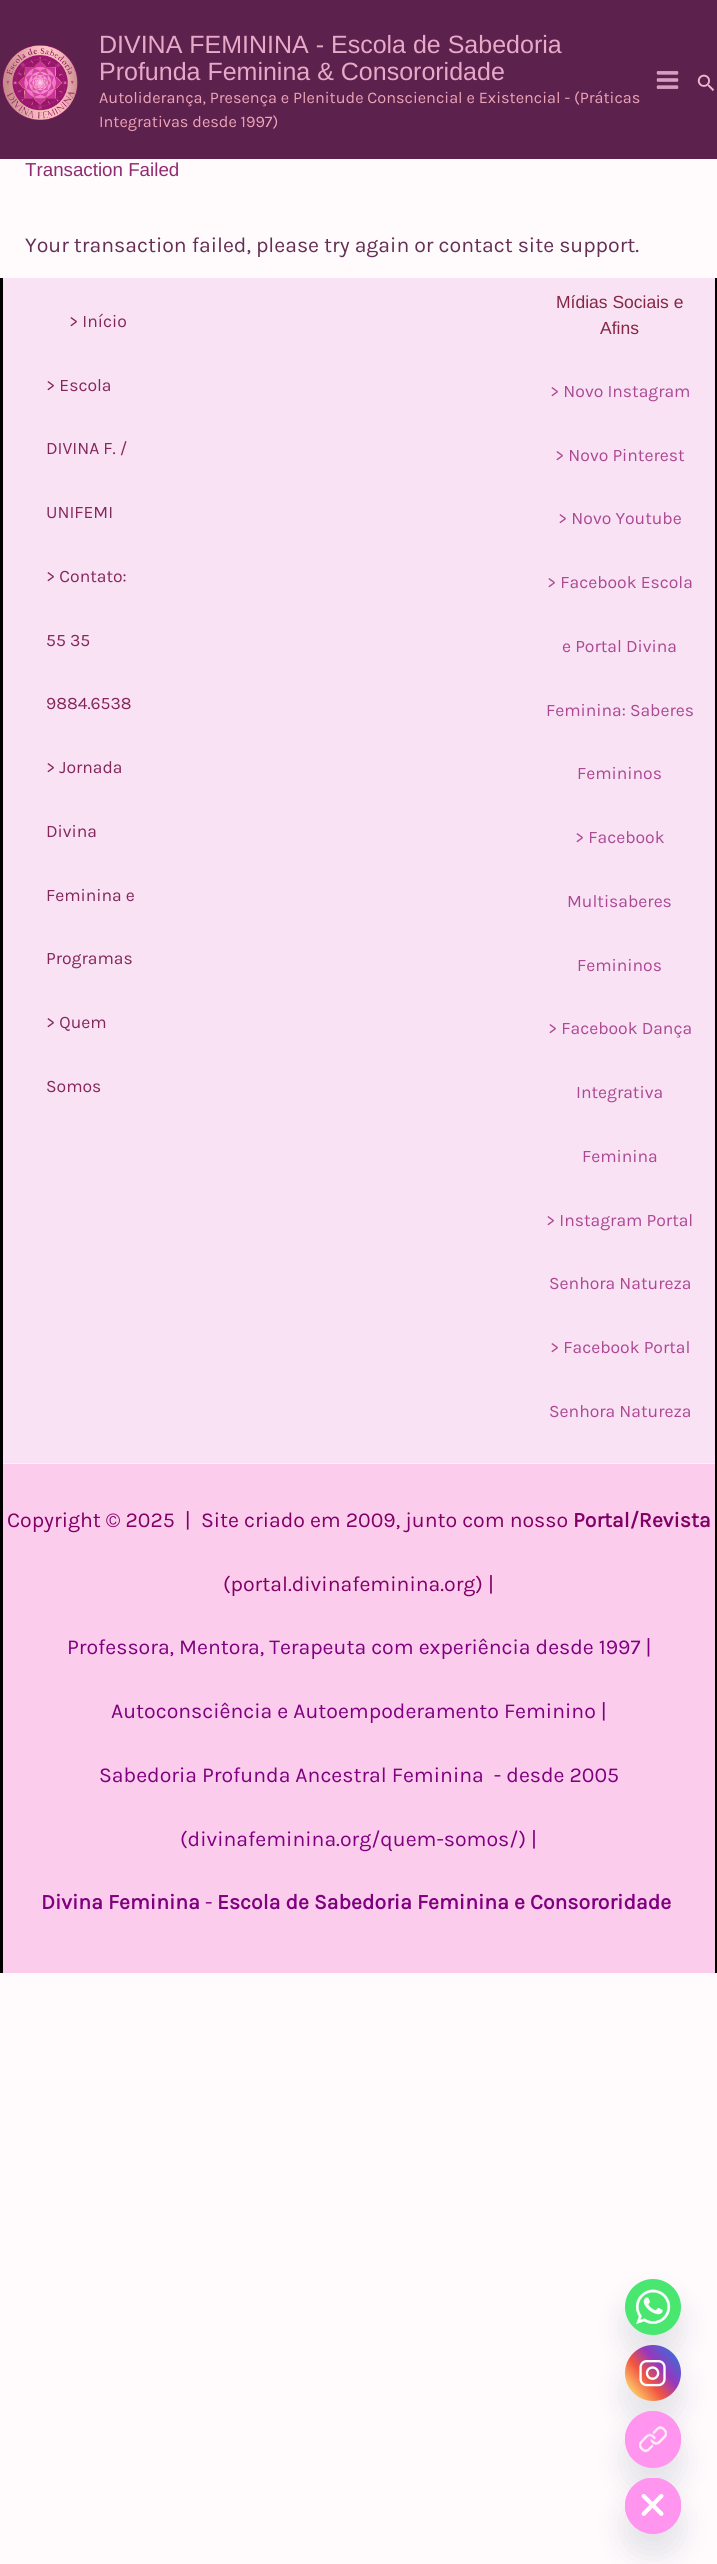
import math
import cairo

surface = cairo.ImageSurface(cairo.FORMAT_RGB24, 717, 2564)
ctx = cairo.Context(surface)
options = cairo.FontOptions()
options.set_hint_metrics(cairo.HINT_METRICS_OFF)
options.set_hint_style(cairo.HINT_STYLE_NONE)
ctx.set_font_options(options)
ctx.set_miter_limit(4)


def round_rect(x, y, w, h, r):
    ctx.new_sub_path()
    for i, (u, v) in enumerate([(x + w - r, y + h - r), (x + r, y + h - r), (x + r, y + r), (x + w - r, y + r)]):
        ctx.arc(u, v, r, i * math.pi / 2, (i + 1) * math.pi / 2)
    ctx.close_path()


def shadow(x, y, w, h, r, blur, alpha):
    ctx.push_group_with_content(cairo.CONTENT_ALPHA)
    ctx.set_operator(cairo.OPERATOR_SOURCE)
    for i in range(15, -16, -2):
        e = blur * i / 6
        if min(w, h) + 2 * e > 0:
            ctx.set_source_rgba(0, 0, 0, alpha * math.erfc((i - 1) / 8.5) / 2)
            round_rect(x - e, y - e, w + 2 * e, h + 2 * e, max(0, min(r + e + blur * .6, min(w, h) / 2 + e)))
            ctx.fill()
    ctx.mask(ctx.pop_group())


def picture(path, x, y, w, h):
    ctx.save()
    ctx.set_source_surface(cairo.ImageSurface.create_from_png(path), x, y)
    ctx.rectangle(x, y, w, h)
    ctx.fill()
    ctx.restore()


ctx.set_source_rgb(1, 0.98, 0.988)
ctx.paint()
ctx.set_source_rgb(0.361, 0.129, 0.298)
ctx.rectangle(0, 0, 717, 159)
ctx.fill()
picture("img1.png", 2, 45, 76, 75)
ctx.select_font_face("Liberation Sans")
ctx.set_font_size(25)
ctx.set_source_rgb(0.91, 0.659, 0.784)
ctx.move_to(99, 53)
ctx.show_text("DIVINA FEMININA - Escola de Sabedoria")
ctx.move_to(99, 80)
ctx.show_text("Profunda Feminina & Consororidade")
ctx.select_font_face("Karla")
ctx.set_font_size(16.25)
ctx.set_source_rgb(0.929, 0.643, 0.722)
ctx.move_to(99, 103)
ctx.show_text("Autoliderança, Presença e Plenitude Consciencial e Existencial - (Práticas")
ctx.move_to(99, 127)
ctx.show_text("Integrativas desde 1997)")
picture("img2.png", 656, 71, 23, 18)
picture("img3.png", 697, 74, 18, 17)
ctx.select_font_face("Liberation Sans")
ctx.set_font_size(18.75)
ctx.set_source_rgb(0.569, 0.169, 0.443)
ctx.move_to(25, 176)
ctx.show_text("Transaction Failed")
ctx.select_font_face("Karla")
ctx.set_font_size(21.25)
ctx.set_source_rgb(0.396, 0.184, 0.333)
ctx.move_to(25, 252)
ctx.show_text("Your transaction failed, please try again or contact site support.")
ctx.set_source_rgb(0, 0, 0)
ctx.rectangle(0, 278, 717, 1695)
ctx.fill()
ctx.set_source_rgb(0.969, 0.886, 0.957)
ctx.rectangle(3, 278, 712, 1185)
ctx.fill()
ctx.set_font_size(17.5)
ctx.set_source_rgb(0.522, 0.149, 0.357)
ctx.move_to(69, 327)
ctx.show_text("> Início")
ctx.move_to(46, 391)
ctx.show_text("> Escola")
ctx.move_to(46, 454)
ctx.show_text("DIVINA F. /")
ctx.move_to(46, 518)
ctx.show_text("UNIFEMI")
ctx.move_to(46, 582)
ctx.show_text("> Contato:")
ctx.move_to(46, 646)
ctx.show_text("55 35")
ctx.move_to(46, 709)
ctx.show_text("9884.6538")
ctx.move_to(46, 773)
ctx.show_text("> Jornada")
ctx.move_to(46, 837)
ctx.show_text("Divina")
ctx.move_to(46, 901)
ctx.show_text("Feminina e")
ctx.move_to(46, 964)
ctx.show_text("Programas")
ctx.move_to(46, 1028)
ctx.show_text("> Quem")
ctx.move_to(46, 1092)
ctx.show_text("Somos")
ctx.select_font_face("Liberation Sans")
ctx.set_source_rgb(0.522, 0.149, 0.267)
ctx.move_to(556, 308)
ctx.show_text("Mídias Sociais e")
ctx.move_to(600, 334)
ctx.show_text("Afins")
ctx.select_font_face("Karla")
ctx.set_source_rgb(0.675, 0.282, 0.576)
ctx.move_to(550, 397)
ctx.show_text("> Novo Instagram")
ctx.move_to(555, 461)
ctx.show_text("> Novo Pinterest")
ctx.move_to(558, 524)
ctx.show_text("> Novo Youtube")
ctx.move_to(547, 588)
ctx.show_text("> Facebook Escola")
ctx.move_to(562, 652)
ctx.show_text("e Portal Divina")
ctx.move_to(546, 716)
ctx.show_text("Feminina: Saberes")
ctx.move_to(577, 779)
ctx.show_text("Femininos")
ctx.move_to(575, 843)
ctx.show_text("> Facebook")
ctx.move_to(567, 907)
ctx.show_text("Multisaberes")
ctx.move_to(577, 971)
ctx.show_text("Femininos")
ctx.move_to(548, 1034)
ctx.show_text("> Facebook Dança")
ctx.move_to(576, 1098)
ctx.show_text("Integrativa")
ctx.move_to(582, 1162)
ctx.show_text("Feminina")
ctx.move_to(546, 1226)
ctx.show_text("> Instagram Portal")
ctx.move_to(549, 1289)
ctx.show_text("Senhora Natureza")
ctx.move_to(550, 1353)
ctx.show_text("> Facebook Portal")
ctx.move_to(549, 1417)
ctx.show_text("Senhora Natureza")
ctx.set_source_rgb(0.988, 0.8, 0.922)
ctx.rectangle(3, 1464, 712, 509)
ctx.fill()
ctx.set_source_rgb(0.949, 0.961, 0.969)
ctx.rectangle(3, 1463, 712, 1)
ctx.fill()
ctx.set_font_size(21.25)
ctx.set_source_rgb(0.502, 0, 0.4)
ctx.move_to(7, 1527)
ctx.show_text("Copyright © 2025  |  Site criado em 2009, junto com nosso")
ctx.select_font_face("Karla", cairo.FONT_SLANT_NORMAL, cairo.FONT_WEIGHT_BOLD)
ctx.move_to(573, 1527)
ctx.show_text("Portal/Revista")
ctx.select_font_face("Karla")
ctx.move_to(223, 1591)
ctx.show_text("(portal.divinafeminina.org) |")
ctx.set_source_rgb(0.502, 0, 0.502)
ctx.move_to(67, 1654)
ctx.show_text("Professora, Mentora, Terapeuta com experiência desde 1997 |")
ctx.move_to(111, 1718)
ctx.show_text("Autoconsciência e Autoempoderamento Feminino |")
ctx.move_to(99, 1782)
ctx.show_text("Sabedoria Profunda Ancestral Feminina  - desde 2005")
ctx.move_to(180, 1846)
ctx.show_text("(divinafeminina.org/quem-somos/) |")
ctx.select_font_face("Karla", cairo.FONT_SLANT_NORMAL, cairo.FONT_WEIGHT_BOLD)
ctx.move_to(41, 1909)
ctx.show_text("Divina Feminina")
ctx.select_font_face("Karla")
ctx.move_to(205, 1909)
ctx.show_text("-")
ctx.select_font_face("Karla", cairo.FONT_SLANT_NORMAL, cairo.FONT_WEIGHT_BOLD)
ctx.move_to(217, 1909)
ctx.show_text("Escola de Sabedoria Feminina e Consororidade")
ctx.set_source_rgb(0.286, 0.408, 0.494)
shadow(625, 2299, 56, 56, 28, 15, 0.16)
picture("img4.png", 625, 2279, 56, 56)
shadow(625, 2365, 56, 56, 28, 15, 0.16)
picture("img5.png", 625, 2345, 56, 56)
shadow(625, 2431, 56, 57, 28, 15, 0.16)
ctx.set_source_rgb(1, 0.584, 0.933)
round_rect(625, 2411, 56, 57, 28)
ctx.fill()
picture("img6.png", 625, 2411, 56, 57)
ctx.set_source_rgb(0.286, 0.408, 0.494)
shadow(625, 2498, 56, 56, 28, 15, 0.16)
ctx.set_source_rgb(1, 0.584, 0.933)
ctx.new_path()
ctx.move_to(653, 2534)
ctx.curve_to(638, 2534, 625, 2521, 625, 2506)
ctx.curve_to(625, 2490, 638, 2478, 653, 2478)
ctx.curve_to(669, 2478, 681, 2490, 681, 2506)
ctx.curve_to(681, 2521, 669, 2534, 653, 2534)
ctx.close_path()
ctx.fill()
picture("img7.png", 625, 2478, 56, 56)
surface.write_to_png("page.png")
